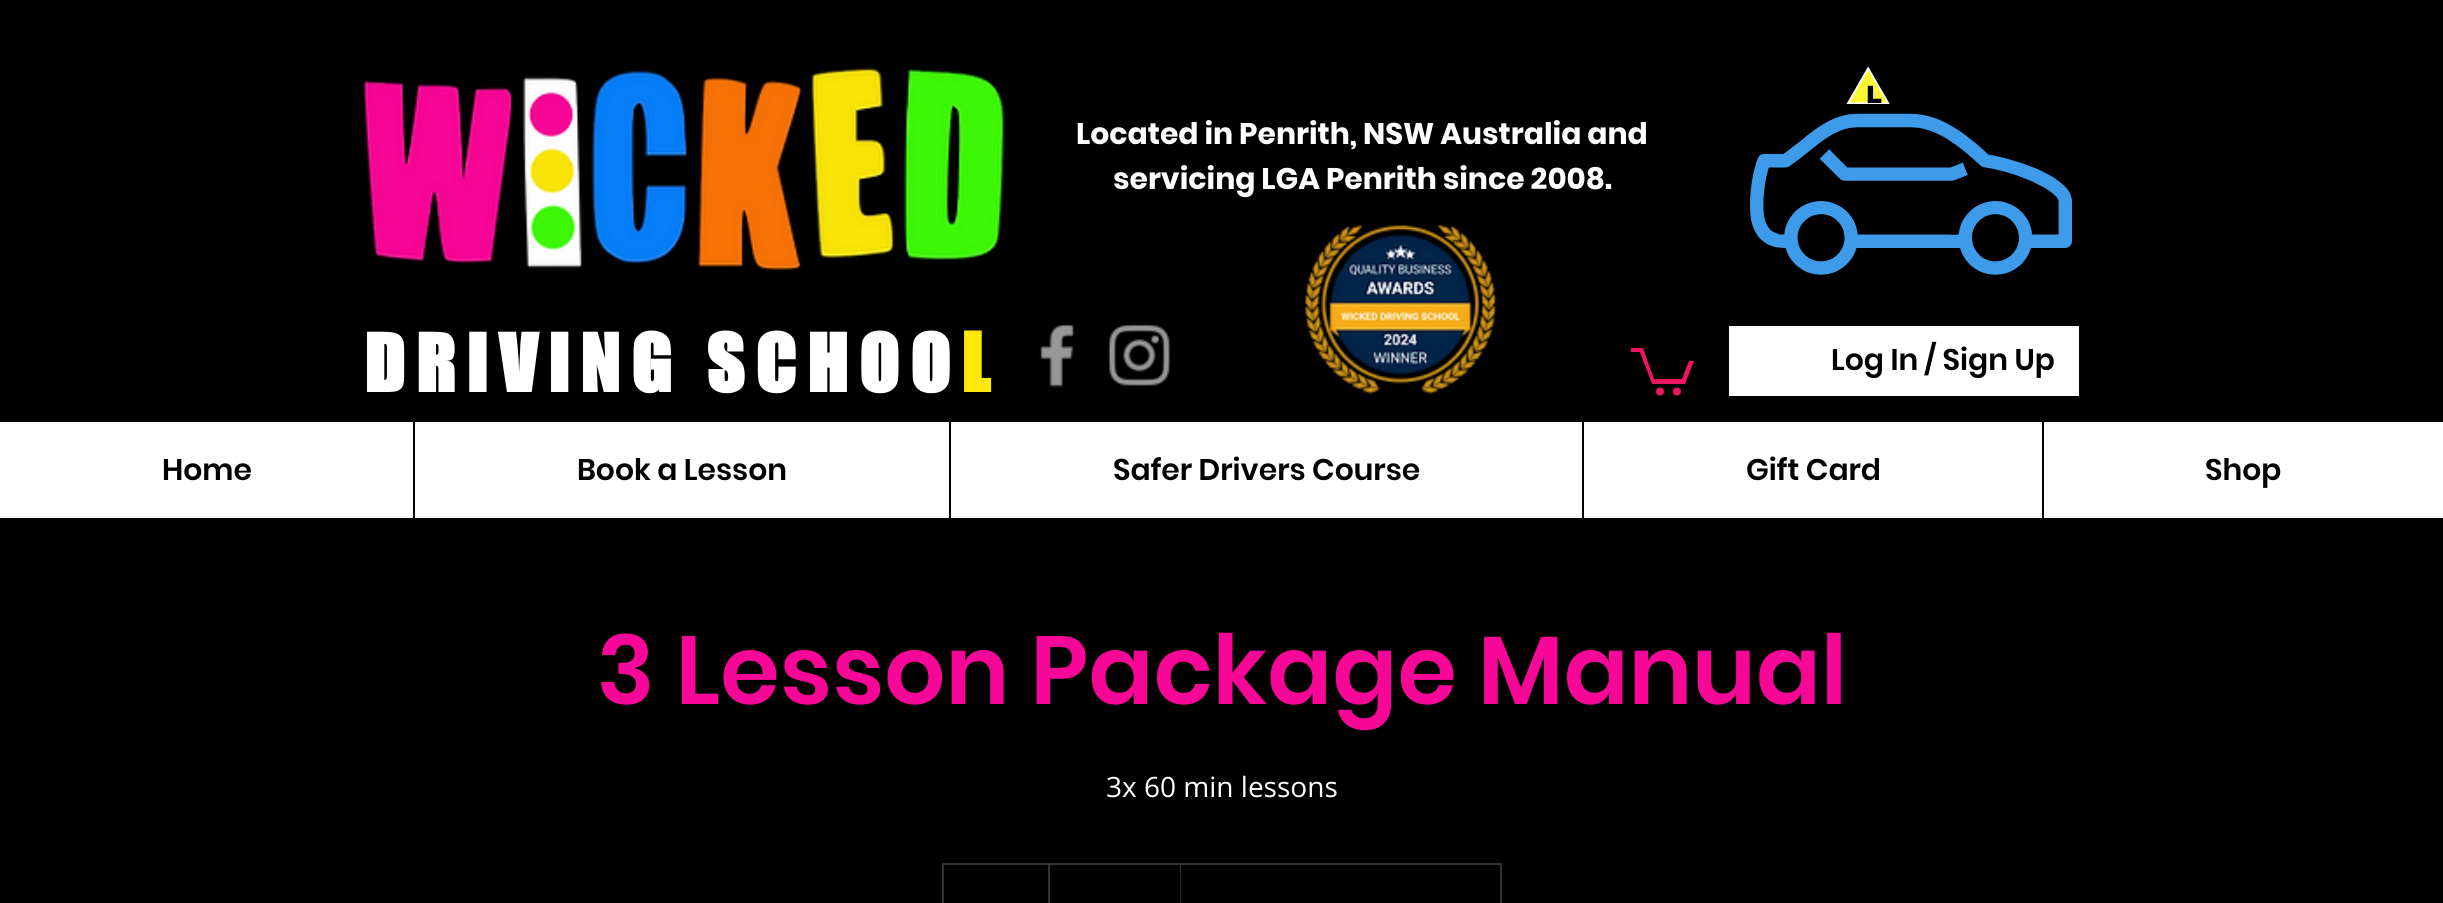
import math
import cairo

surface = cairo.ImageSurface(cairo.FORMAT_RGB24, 2443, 903)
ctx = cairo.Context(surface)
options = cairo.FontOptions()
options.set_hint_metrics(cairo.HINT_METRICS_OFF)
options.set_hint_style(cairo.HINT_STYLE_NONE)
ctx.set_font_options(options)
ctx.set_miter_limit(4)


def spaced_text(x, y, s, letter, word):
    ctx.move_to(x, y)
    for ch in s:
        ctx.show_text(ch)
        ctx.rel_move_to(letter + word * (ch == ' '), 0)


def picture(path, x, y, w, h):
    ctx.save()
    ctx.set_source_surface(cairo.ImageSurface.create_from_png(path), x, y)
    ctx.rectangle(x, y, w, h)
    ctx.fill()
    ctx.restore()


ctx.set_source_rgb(0, 0, 0)
ctx.paint()
picture("img1.png", 363, 68, 642, 202)
picture("img2.png", 1846, 66, 44, 38)
ctx.select_font_face("arial Black")
ctx.set_font_size(24)
ctx.set_source_rgb(0, 0, 0)
spaced_text(1866, 103, "L", 1, 0)
picture("img3.png", 1750, 113, 322, 162)
ctx.select_font_face("Poppins", cairo.FONT_SLANT_NORMAL, cairo.FONT_WEIGHT_BOLD)
ctx.set_font_size(29.75)
ctx.set_source_rgb(1, 1, 1)
ctx.move_to(1076, 144)
ctx.show_text("Located in Penrith, NSW Australia and")
ctx.move_to(1113, 189)
ctx.show_text("servicing LGA Penrith since 2008.")
ctx.select_font_face("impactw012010", cairo.FONT_SLANT_NORMAL, cairo.FONT_WEIGHT_BOLD)
ctx.set_font_size(73.5)
spaced_text(364, 392, "DRIVING SCHOO", 11, 0)
ctx.set_font_size(75)
ctx.set_source_rgb(1, 0.906, 0.039)
spaced_text(961, 392, "L", 8, 0)
picture("img4.png", 1039, 324, 36, 64)
picture("img5.png", 1108, 324, 63, 63)
picture("img6.png", 1305, 223, 192, 172)
ctx.set_source_rgb(0.929, 0.082, 0.4)
ctx.new_path()
ctx.move_to(1694, 361)
ctx.line_to(1685, 384)
ctx.line_to(1652, 384)
ctx.line_to(1640, 352)
ctx.line_to(1631, 352)
ctx.line_to(1631, 348)
ctx.line_to(1643, 348)
ctx.line_to(1654, 379)
ctx.line_to(1682, 379)
ctx.line_to(1689, 361)
ctx.fill()
ctx.arc(1677, 391.5, 4, 0, 2 * math.pi)
ctx.fill()
ctx.arc(1660, 391.5, 4, 0, 2 * math.pi)
ctx.fill()
ctx.set_source_rgb(1, 1, 1)
ctx.rectangle(1729, 326, 350, 70)
ctx.fill()
ctx.select_font_face("Poppins SemiBold")
ctx.set_font_size(29.75)
ctx.set_source_rgb(0, 0, 0)
ctx.move_to(1831, 370)
ctx.show_text("Log In / Sign Up")
ctx.set_source_rgb(1, 1, 1)
ctx.rectangle(0, 422, 2443, 96)
ctx.fill()
ctx.set_source_rgb(0, 0, 0)
ctx.move_to(162, 480)
ctx.show_text("Home")
ctx.rectangle(413, 422, 2, 96)
ctx.fill()
ctx.move_to(577, 480)
ctx.show_text("Book a Lesson")
ctx.rectangle(949, 422, 2, 96)
ctx.fill()
ctx.move_to(1113, 480)
ctx.show_text("Safer Drivers Course")
ctx.rectangle(1582, 422, 2, 96)
ctx.fill()
ctx.move_to(1746, 480)
ctx.show_text("Gift Card")
ctx.rectangle(2042, 422, 2, 96)
ctx.fill()
ctx.move_to(2205, 480)
ctx.show_text("Shop")
ctx.set_font_size(96.25)
ctx.set_source_rgb(0.969, 0.027, 0.592)
ctx.move_to(597, 704)
ctx.show_text("3 Lesson Package Manual")
ctx.select_font_face("Open Sans")
ctx.set_font_size(28)
ctx.set_source_rgb(1, 1, 1)
ctx.move_to(1106, 797)
ctx.show_text("3x 60 min lessons")
ctx.rectangle(943, 864, 558, 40)
ctx.set_source_rgb(0.2, 0.2, 0.2)
ctx.stroke()
ctx.save()
ctx.rectangle(943, 865, 557, 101)
ctx.clip()
ctx.new_path()
ctx.move_to(1048, 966)
ctx.line_to(1048, 863)
ctx.line_to(1050, 864)
ctx.line_to(1050, 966)
ctx.close_path()
ctx.fill()
ctx.restore()
ctx.new_path()
ctx.move_to(1180, 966)
ctx.line_to(1180, 863)
ctx.line_to(1181, 864)
ctx.line_to(1181, 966)
ctx.close_path()
ctx.fill()
surface.write_to_png("page.png")
